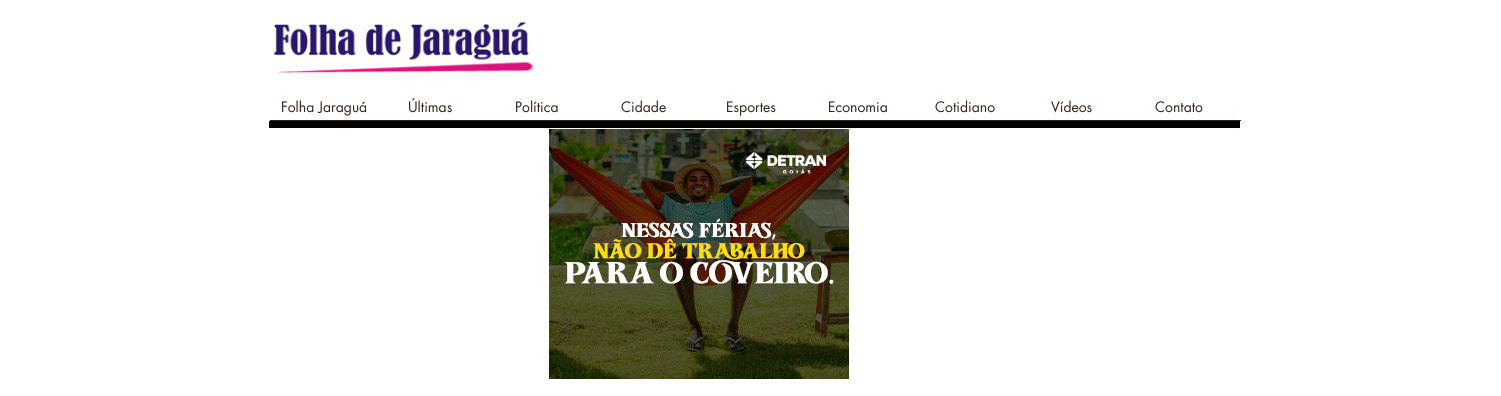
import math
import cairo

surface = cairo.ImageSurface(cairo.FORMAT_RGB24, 1501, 396)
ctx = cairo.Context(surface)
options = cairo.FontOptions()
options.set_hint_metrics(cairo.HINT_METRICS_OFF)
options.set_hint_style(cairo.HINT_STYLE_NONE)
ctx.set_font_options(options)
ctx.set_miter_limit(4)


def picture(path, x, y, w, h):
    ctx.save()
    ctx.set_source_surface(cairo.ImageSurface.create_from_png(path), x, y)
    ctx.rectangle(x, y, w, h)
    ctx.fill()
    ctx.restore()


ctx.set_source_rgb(1, 1, 1)
ctx.paint()
picture("img1.png", 273, 22, 260, 52)
ctx.select_font_face("futura")
ctx.set_font_size(14)
ctx.set_source_rgb(0.204, 0.133, 0.086)
ctx.move_to(281, 112)
ctx.show_text("Folha Jaraguá")
ctx.move_to(408, 112)
ctx.show_text("Últimas")
ctx.move_to(515, 112)
ctx.show_text("Política")
ctx.move_to(621, 112)
ctx.show_text("Cidade")
ctx.move_to(726, 112)
ctx.show_text("Esportes")
ctx.move_to(828, 112)
ctx.show_text("Economia")
ctx.move_to(935, 112)
ctx.show_text("Cotidiano")
ctx.move_to(1051, 112)
ctx.show_text("Vídeos")
ctx.move_to(1155, 112)
ctx.show_text("Contato")
ctx.rectangle(270, 120, 971, 1)
ctx.fill()
ctx.set_source_rgb(0.012, 0.012, 0.012)
ctx.rectangle(269, 121, 971, 7)
ctx.fill()
picture("img2.png", 549, 129, 300, 250)
surface.write_to_png("page.png")
